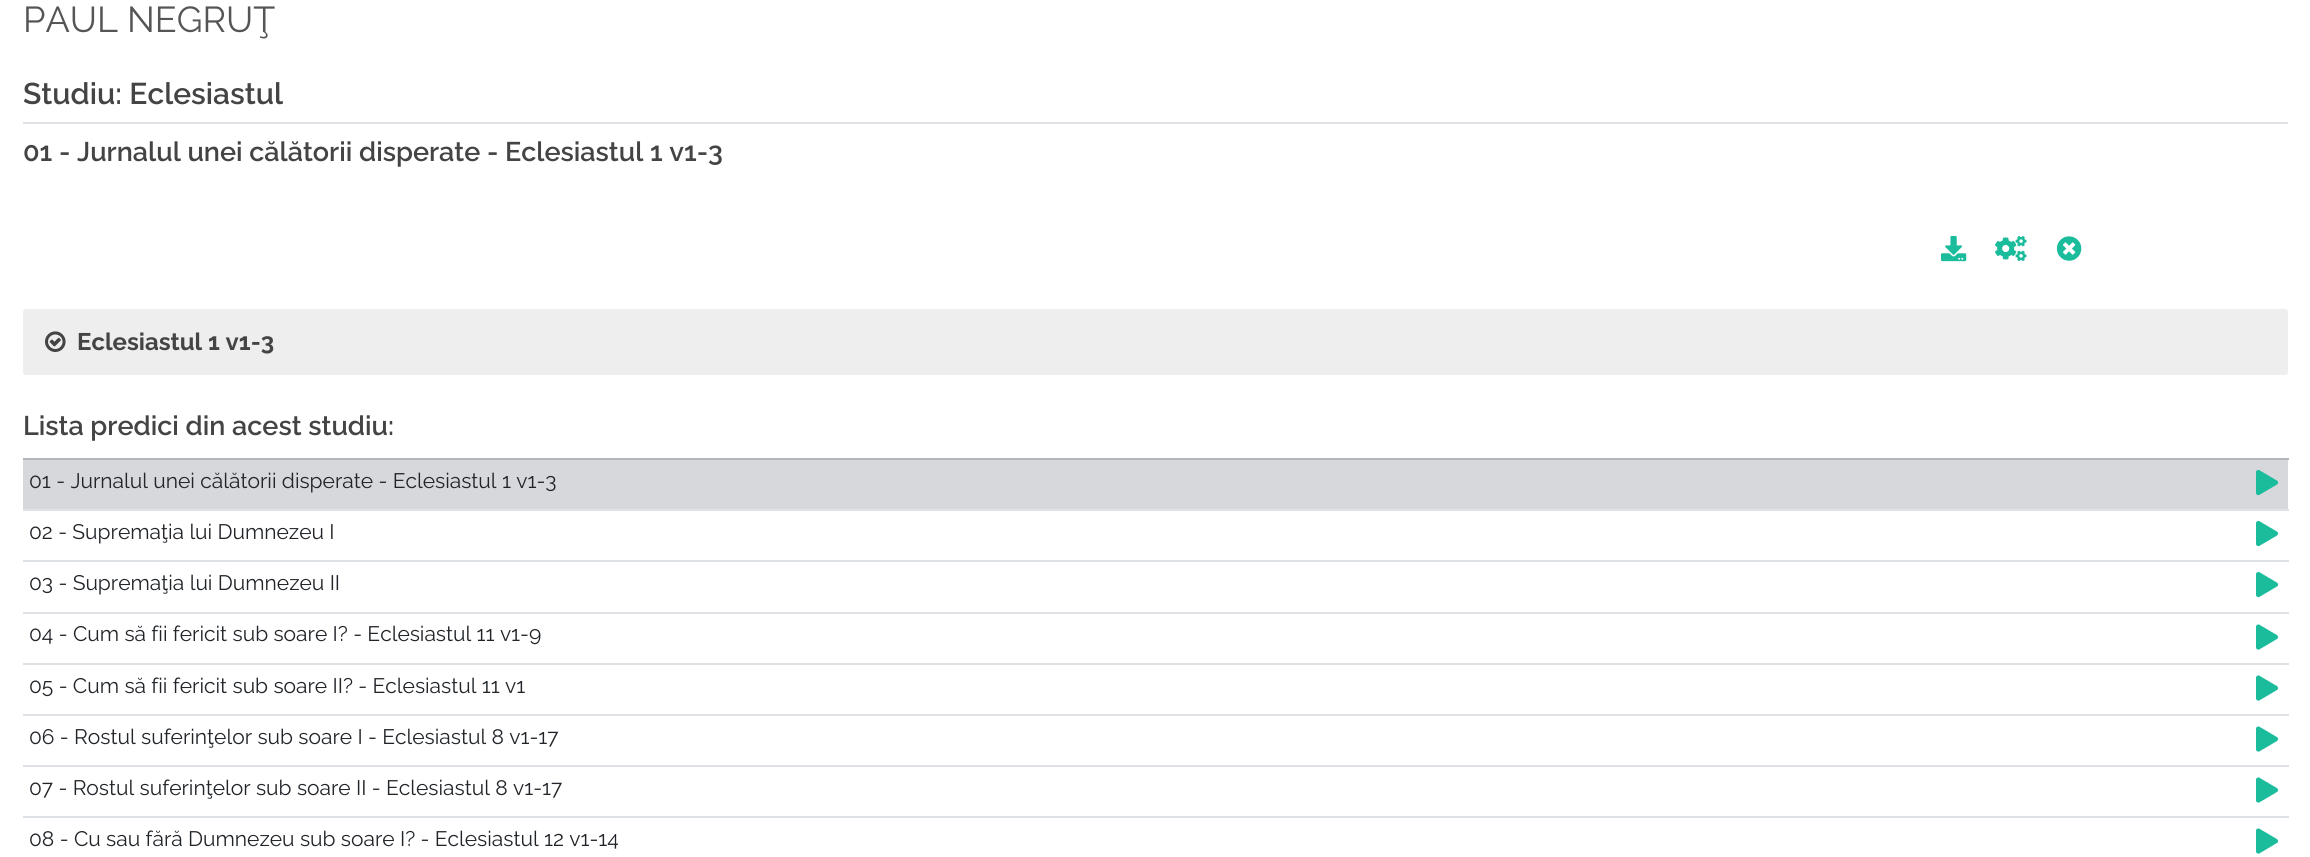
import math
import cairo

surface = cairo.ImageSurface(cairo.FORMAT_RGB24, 2310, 857)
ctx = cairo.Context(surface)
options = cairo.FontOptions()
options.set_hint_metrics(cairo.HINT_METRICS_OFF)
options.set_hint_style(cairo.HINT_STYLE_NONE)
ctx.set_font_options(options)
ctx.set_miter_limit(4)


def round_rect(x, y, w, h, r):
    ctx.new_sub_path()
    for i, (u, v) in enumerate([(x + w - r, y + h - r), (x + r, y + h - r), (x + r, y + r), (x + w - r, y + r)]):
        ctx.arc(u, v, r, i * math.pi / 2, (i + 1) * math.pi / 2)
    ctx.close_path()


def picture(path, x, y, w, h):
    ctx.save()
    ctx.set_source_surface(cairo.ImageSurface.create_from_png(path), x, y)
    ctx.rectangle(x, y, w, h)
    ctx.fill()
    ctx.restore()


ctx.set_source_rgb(1, 1, 1)
ctx.paint()
ctx.select_font_face("Raleway")
ctx.set_font_size(36)
ctx.set_source_rgb(0.333, 0.333, 0.333)
ctx.move_to(23, 32)
ctx.show_text("PAUL NEGRUŢ")
ctx.set_source_rgb(0.871, 0.886, 0.902)
ctx.rectangle(23, 122, 2265, 2)
ctx.fill()
ctx.select_font_face("Raleway SemiBold")
ctx.set_font_size(30)
ctx.set_source_rgb(0.267, 0.267, 0.267)
ctx.move_to(23, 104)
ctx.show_text("Studiu: Eclesiastul")
ctx.set_font_size(27)
ctx.move_to(23, 161)
ctx.show_text("01 - Jurnalul unei călătorii disperate - Eclesiastul 1 v1-3")
picture("img1.png", 1941, 235, 26, 27)
picture("img2.png", 1995, 236, 32, 26)
picture("img3.png", 2056, 236, 26, 25)
ctx.set_source_rgb(0.933, 0.933, 0.933)
round_rect(23, 309, 2265, 66, 3)
ctx.fill()
picture("img4.png", 45, 331, 21, 21)
ctx.select_font_face("Raleway", cairo.FONT_SLANT_NORMAL, cairo.FONT_WEIGHT_BOLD)
ctx.set_font_size(24)
ctx.set_source_rgb(0.267, 0.267, 0.267)
ctx.move_to(77, 350)
ctx.show_text("Eclesiastul 1 v1-3")
ctx.select_font_face("Raleway SemiBold")
ctx.set_font_size(27)
ctx.move_to(23, 435)
ctx.show_text("Lista predici din acest studiu:")
ctx.set_source_rgb(0.839, 0.847, 0.859)
ctx.rectangle(23, 460, 2265, 49)
ctx.fill()
ctx.set_source_rgb(0.702, 0.718, 0.733)
ctx.rectangle(23, 458, 2266, 2)
ctx.fill()
picture("img5.png", 2256, 469, 22, 27)
ctx.select_font_face("Raleway")
ctx.set_font_size(21)
ctx.set_source_rgb(0.129, 0.145, 0.161)
ctx.move_to(29, 488)
ctx.show_text("01 - Jurnalul unei călătorii disperate - Eclesiastul 1 v1-3")
ctx.set_source_rgb(0.871, 0.886, 0.902)
ctx.rectangle(23, 509, 2266, 2)
ctx.fill()
picture("img6.png", 2256, 520, 22, 27)
ctx.set_source_rgb(0.129, 0.145, 0.161)
ctx.move_to(29, 539)
ctx.show_text("02 - Supremaţia lui Dumnezeu I")
ctx.set_source_rgb(0.871, 0.886, 0.902)
ctx.rectangle(23, 560, 2266, 2)
ctx.fill()
picture("img6.png", 2256, 571, 22, 27)
ctx.set_source_rgb(0.129, 0.145, 0.161)
ctx.move_to(29, 590)
ctx.show_text("03 - Supremaţia lui Dumnezeu II")
ctx.set_source_rgb(0.871, 0.886, 0.902)
ctx.rectangle(23, 612, 2266, 2)
ctx.fill()
picture("img7.png", 2256, 624, 22, 26)
ctx.set_source_rgb(0.129, 0.145, 0.161)
ctx.move_to(29, 641)
ctx.show_text("04 - Cum să fii fericit sub soare I? - Eclesiastul 11 v1-9")
ctx.set_source_rgb(0.871, 0.886, 0.902)
ctx.rectangle(23, 663, 2266, 2)
ctx.fill()
picture("img7.png", 2256, 675, 22, 26)
ctx.set_source_rgb(0.129, 0.145, 0.161)
ctx.move_to(29, 693)
ctx.show_text("05 - Cum să fii fericit sub soare II? - Eclesiastul 11 v1")
ctx.set_source_rgb(0.871, 0.886, 0.902)
ctx.rectangle(23, 714, 2266, 2)
ctx.fill()
picture("img7.png", 2256, 726, 22, 26)
ctx.set_source_rgb(0.129, 0.145, 0.161)
ctx.move_to(29, 744)
ctx.show_text("06 - Rostul suferinţelor sub soare I - Eclesiastul 8 v1-17")
ctx.set_source_rgb(0.871, 0.886, 0.902)
ctx.rectangle(23, 765, 2266, 2)
ctx.fill()
picture("img7.png", 2256, 777, 22, 26)
ctx.set_source_rgb(0.129, 0.145, 0.161)
ctx.move_to(29, 795)
ctx.show_text("07 - Rostul suferinţelor sub soare II - Eclesiastul 8 v1-17")
ctx.set_source_rgb(0.871, 0.886, 0.902)
ctx.rectangle(23, 816, 2266, 2)
ctx.fill()
picture("img7.png", 2256, 828, 22, 26)
ctx.set_source_rgb(0.129, 0.145, 0.161)
ctx.move_to(29, 846)
ctx.show_text("08 - Cu sau fără Dumnezeu sub soare I? - Eclesiastul 12 v1-14")
surface.write_to_png("page.png")
